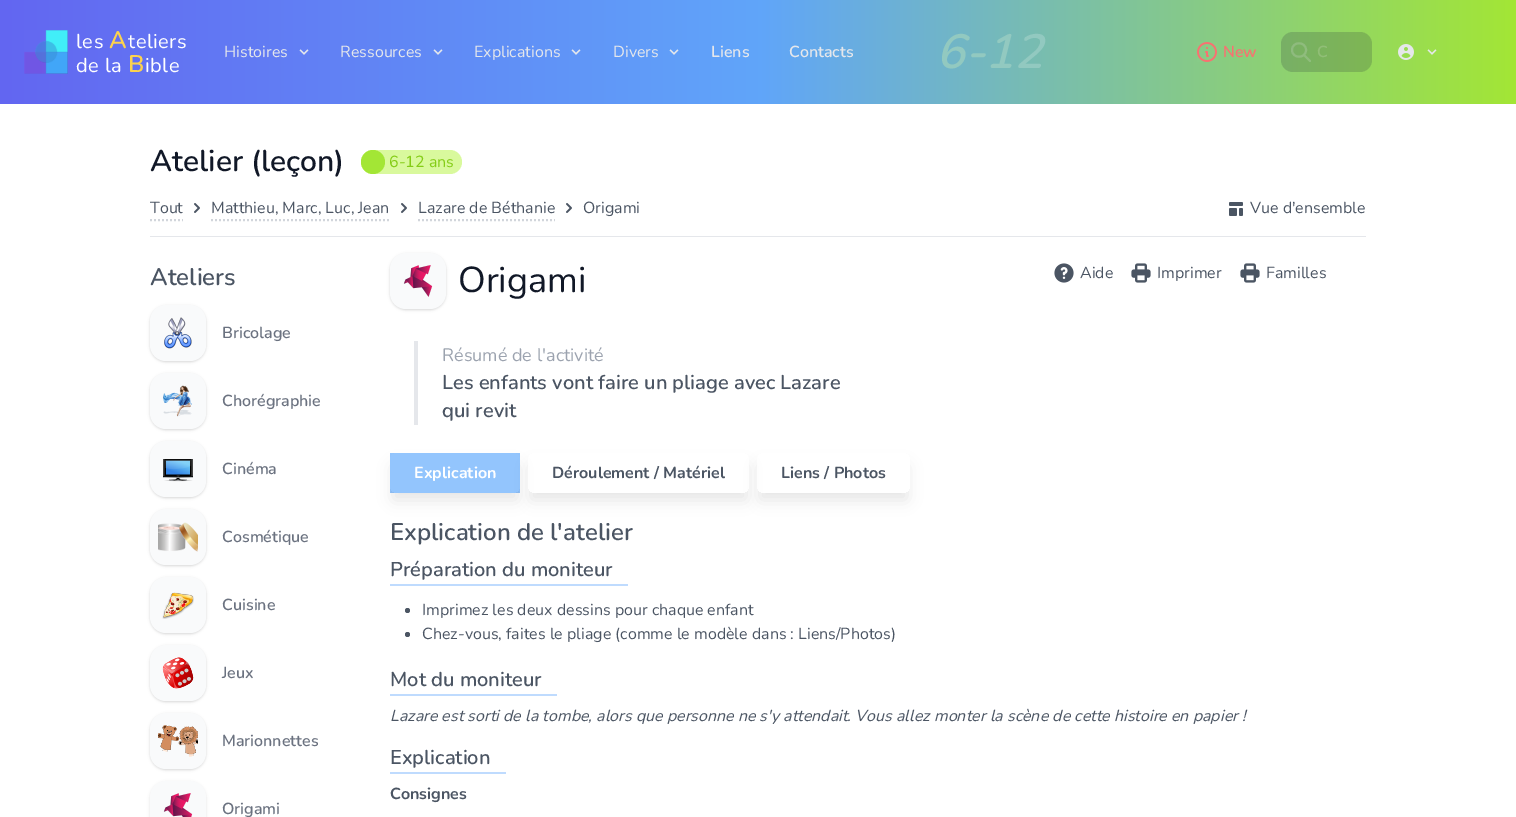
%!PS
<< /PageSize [1516 817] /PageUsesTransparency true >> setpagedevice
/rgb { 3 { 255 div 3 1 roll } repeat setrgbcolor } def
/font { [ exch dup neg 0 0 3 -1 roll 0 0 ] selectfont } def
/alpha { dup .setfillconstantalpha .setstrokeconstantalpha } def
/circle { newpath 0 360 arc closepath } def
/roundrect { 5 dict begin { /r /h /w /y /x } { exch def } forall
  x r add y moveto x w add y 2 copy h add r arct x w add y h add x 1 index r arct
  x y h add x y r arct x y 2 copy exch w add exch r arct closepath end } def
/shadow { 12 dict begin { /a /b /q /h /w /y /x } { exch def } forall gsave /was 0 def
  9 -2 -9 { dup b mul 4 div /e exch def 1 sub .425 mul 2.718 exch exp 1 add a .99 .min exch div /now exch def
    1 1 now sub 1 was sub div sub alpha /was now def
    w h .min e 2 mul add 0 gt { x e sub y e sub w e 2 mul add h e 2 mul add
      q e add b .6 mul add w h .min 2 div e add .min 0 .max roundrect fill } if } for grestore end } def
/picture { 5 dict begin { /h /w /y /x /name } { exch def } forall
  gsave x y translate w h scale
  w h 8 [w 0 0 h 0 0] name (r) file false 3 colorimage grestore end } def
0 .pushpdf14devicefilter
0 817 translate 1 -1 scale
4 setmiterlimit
255 255 255 rgb
0 0 1516 817 rectfill
gsave 0 0 moveto 1516 0 lineto 1516 104 lineto 0 104 lineto closepath clip newpath
<< /ShadingType 2 /ColorSpace /DeviceRGB /Coords [0 52 1516 52] /Extend [true true] /Function << /FunctionType 3 /Domain [0 1] /Functions [<< /FunctionType 2 /Domain [0 1] /C0 [0.388 0.4 0.945] /C1 [0.376 0.647 0.98] /N 1 >> << /FunctionType 2 /Domain [0 1] /C0 [0.376 0.647 0.98] /C1 [0.639 0.902 0.208] /N 1 >>] /Bounds [0.5] /Encode [0 1 0 1] >> >> shfill grestore
(img/1.rgb) 24 30 44 44 picture
(img/2.rgb) 299 49 10 6 picture
(img/3.rgb) 433 49 10 6 picture
(img/4.rgb) 571 49 10 6 picture
(img/5.rgb) 669 49 10 6 picture
(img/6.rgb) 1197 42 20 20 picture
0.2 alpha
31 41 55 rgb
1281 32 91 40 12 roundrect fill
229 231 235 rgb
2 setlinewidth
1 setlinecap
1 setlinejoin
1310 61 moveto 1304 55 lineto 1306 50 moveto 1306 59 1292 59 1292 50 curveto 1292 41 1306 41 1306 50 curveto closepath stroke
1 alpha
(img/7.rgb) 1398 44 16 16 picture
(img/8.rgb) 1427 49 10 6 picture
217 249 157 rgb
361 150 101 24 12 roundrect fill
163 230 53 rgb
373 162 12 circle fill
209 213 219 rgb
0 setlinecap
0 setlinejoin
[2 2] 0 setdash
150 220 moveto 183 220 lineto stroke
(img/9.rgb) 194 203 6 10 picture
211 220 moveto 390 220 lineto stroke
(img/9.rgb) 401 203 6 10 picture
418 220 moveto 555 220 lineto stroke
(img/9.rgb) 566 203 6 10 picture
(img/10.rgb) 1229 202 14 14 picture
229 231 235 rgb
150 236 1216 1 rectfill
0 0 0 rgb
150 306 56 56 16 1 0.06 shadow
150 306 56 56 16 1.5 0.1 shadow
249 250 251 rgb
150 305 56 56 16 roundrect fill
(img/11.rgb) 164 317 28 32 picture
0 0 0 rgb
150 374 56 56 16 1 0.06 shadow
150 374 56 56 16 1.5 0.1 shadow
249 250 251 rgb
150 373 56 56 16 roundrect fill
(img/12.rgb) 163 385 29 32 picture
0 0 0 rgb
150 442 56 56 16 1 0.06 shadow
150 442 56 56 16 1.5 0.1 shadow
249 250 251 rgb
150 441 56 56 16 roundrect fill
(img/13.rgb) 163 459 30 23 picture
0 0 0 rgb
150 510 56 56 16 1 0.06 shadow
150 510 56 56 16 1.5 0.1 shadow
249 250 251 rgb
150 509 56 56 16 roundrect fill
(img/14.rgb) 158 522 40 30 picture
0 0 0 rgb
150 578 56 56 16 1 0.06 shadow
150 578 56 56 16 1.5 0.1 shadow
249 250 251 rgb
150 577 56 56 16 roundrect fill
(img/15.rgb) 162 592 32 27 picture
0 0 0 rgb
150 646 56 56 16 1 0.06 shadow
150 646 56 56 16 1.5 0.1 shadow
249 250 251 rgb
150 645 56 56 16 roundrect fill
(img/16.rgb) 162 657 32 32 picture
0 0 0 rgb
150 714 56 56 16 1 0.06 shadow
150 714 56 56 16 1.5 0.1 shadow
249 250 251 rgb
150 713 56 56 16 roundrect fill
(img/17.rgb) 158 725 40 32 picture
0 0 0 rgb
150 782 56 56 16 1.5 0.1 shadow
249 250 251 rgb
150 781 56 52 16 roundrect fill
(img/18.rgb) 163 793 30 24 picture
0 0 0 rgb
390 254 56 56 16 1 0.06 shadow
390 254 56 56 16 1.5 0.1 shadow
249 250 251 rgb
390 253 56 56 16 roundrect fill
(img/19.rgb) 403 265 30 32 picture
(img/20.rgb) 1054 263 20 20 picture
(img/21.rgb) 1131 263 20 20 picture
(img/21.rgb) 1240 263 20 20 picture
229 231 235 rgb
414 341 4 84 rectfill
147 197 253 rgb
390 453 130 40 rectfill
gsave
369 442 moveto 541 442 lineto 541 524 lineto 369 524 lineto closepath 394 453 moveto 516 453 lineto 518 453 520 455 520 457 curveto 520 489 lineto 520 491 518 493 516 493 curveto 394 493 lineto 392 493 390 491 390 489 curveto 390 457 lineto 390 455 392 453 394 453 curveto closepath eoclip newpath
0 0 0 rgb
393 466 124 34 1 7.5 0.1 shadow
grestore
gsave
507 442 moveto 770 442 lineto 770 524 lineto 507 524 lineto closepath 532 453 moveto 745 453 lineto 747 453 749 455 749 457 curveto 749 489 lineto 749 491 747 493 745 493 curveto 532 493 lineto 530 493 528 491 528 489 curveto 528 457 lineto 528 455 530 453 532 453 curveto closepath eoclip newpath
0 0 0 rgb
531 466 215 34 1 7.5 0.1 shadow
grestore
gsave
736 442 moveto 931 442 lineto 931 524 lineto 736 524 lineto closepath 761 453 moveto 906 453 lineto 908 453 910 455 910 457 curveto 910 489 lineto 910 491 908 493 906 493 curveto 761 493 lineto 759 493 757 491 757 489 curveto 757 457 lineto 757 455 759 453 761 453 curveto closepath eoclip newpath
0 0 0 rgb
760 466 147 34 1 7.5 0.1 shadow
grestore
191 219 254 rgb
390 584 238 2 rectfill
75 85 99 rgb
407.5 610.5 2.5 circle fill
407.5 634.5 2.5 circle fill
191 219 254 rgb
390 694 167 2 rectfill
390 772 116 2 rectfill
/Nunito-Regular 20 font
255 255 255 rgb
76 48 moveto 0.5 0 (les) ashow
/Nunito-SemiBold 24 font
252 211 77 rgb
109 48 moveto 0.5 0 (A) ashow
/Nunito-Regular 20 font
255 255 255 rgb
128 48 moveto 0.5 0 (teliers) ashow
76 72 moveto 0.5 0 (de la) ashow
/Nunito-SemiBold 24 font
252 211 77 rgb
128 72 moveto 0.5 0 (B) ashow
/Nunito-Regular 20 font
255 255 255 rgb
145 72 moveto 0.5 0 (ible) ashow
/Nunito-Regular 16 font
229 231 235 rgb
[
  [(Histoires) 224 57]
  [(Ressources) 340 57]
  [(Explications) 474 57]
  [(Divers) 613 57]
] { aload pop moveto show } forall
/Nunito-SemiBold 16 font
711 57 moveto (Liens) show
789 57 moveto (Contacts) show
/Nunito-SemiBoldItalic 48 font
146 201 192 rgb
936 68 moveto (6-12) show
/Nunito-SemiBold 16 font
248 113 113 rgb
1223 57 moveto (New) show
145 190 119 rgb
1317 57 moveto (C) show
/Nunito-SemiBold 30 font
17 24 39 rgb
150 171 moveto (Atelier \(leçon\)) show
/Nunito-Regular 16 font
132 204 22 rgb
389 167 moveto (6-12 ans) show
75 85 99 rgb
[
  [(Tout) 150 213]
  [(Matthieu, Marc, Luc, Jean) 211 213]
  [(Lazare de Béthanie) 418 213]
  [(Origami) 583 213]
  [(Vue d'ensemble) 1250 213]
] { aload pop moveto show } forall
/Nunito-SemiBold 24 font
150 285 moveto (Ateliers) show
/Nunito-SemiBold 16 font
107 114 128 rgb
[
  [(Bricolage) 222 338]
  [(Chorégraphie) 222 406]
  [(Cinéma) 222 474]
  [(Cosmétique) 222 542]
  [(Cuisine) 222 610]
  [(Jeux) 222 678]
  [(Marionnettes) 222 746]
  [(Origami) 222 814]
] { aload pop moveto show } forall
/Nunito-Regular 36 font
17 24 39 rgb
458 292 moveto (Origami) show
/Nunito-Regular 16 font
75 85 99 rgb
[
  [(Aide) 1080 278]
  [(Imprimer) 1157 278]
  [(Familles) 1266 278]
] { aload pop moveto show } forall
/Nunito-Regular 18 font
156 163 175 rgb
442 361 moveto (Résumé de l'activité) show
/Nunito-SemiBold 20 font
75 85 99 rgb
442 389 moveto (Les enfants vont faire un pliage avec Lazare) show
442 417 moveto (qui revit) show
/Nunito-Bold 16 font
255 255 255 rgb
414 478 moveto (Explication) show
75 85 99 rgb
552 478 moveto (Déroulement / Matériel) show
781 478 moveto (Liens / Photos) show
/Nunito-SemiBold 24 font
390 540 moveto (Explication de l'atelier) show
/Nunito-SemiBold 20 font
390 576 moveto (Préparation du moniteur) show
/Nunito-Regular 16 font
422 615 moveto (Imprimez les deux dessins pour chaque enfant) show
422 639 moveto (Chez-vous, faites le pliage \(comme le modèle dans : Liens/Photos\)) show
/Nunito-SemiBold 20 font
390 686 moveto (Mot du moniteur) show
/Nunito-Italic 16 font
390 721 moveto (Lazare est sorti de la tombe, alors que personne ne s'y attendait. Vous allez monter la scène de cette histoire en papier !) show
/Nunito-SemiBold 20 font
390 764 moveto (Explication) show
/Nunito-Bold 16 font
390 799 moveto (Consignes) show
.poppdf14devicefilter showpage
